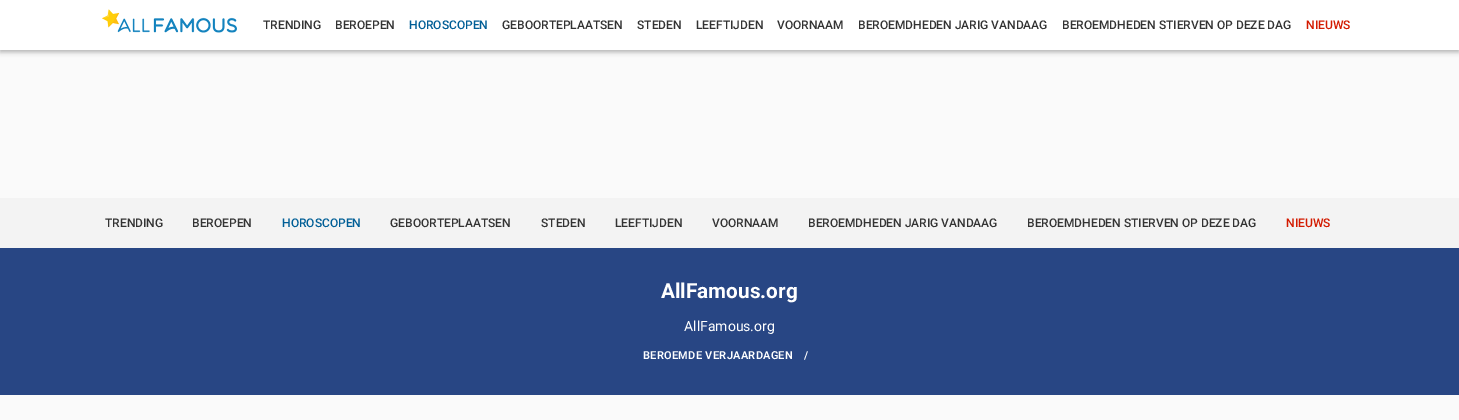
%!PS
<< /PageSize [1459 420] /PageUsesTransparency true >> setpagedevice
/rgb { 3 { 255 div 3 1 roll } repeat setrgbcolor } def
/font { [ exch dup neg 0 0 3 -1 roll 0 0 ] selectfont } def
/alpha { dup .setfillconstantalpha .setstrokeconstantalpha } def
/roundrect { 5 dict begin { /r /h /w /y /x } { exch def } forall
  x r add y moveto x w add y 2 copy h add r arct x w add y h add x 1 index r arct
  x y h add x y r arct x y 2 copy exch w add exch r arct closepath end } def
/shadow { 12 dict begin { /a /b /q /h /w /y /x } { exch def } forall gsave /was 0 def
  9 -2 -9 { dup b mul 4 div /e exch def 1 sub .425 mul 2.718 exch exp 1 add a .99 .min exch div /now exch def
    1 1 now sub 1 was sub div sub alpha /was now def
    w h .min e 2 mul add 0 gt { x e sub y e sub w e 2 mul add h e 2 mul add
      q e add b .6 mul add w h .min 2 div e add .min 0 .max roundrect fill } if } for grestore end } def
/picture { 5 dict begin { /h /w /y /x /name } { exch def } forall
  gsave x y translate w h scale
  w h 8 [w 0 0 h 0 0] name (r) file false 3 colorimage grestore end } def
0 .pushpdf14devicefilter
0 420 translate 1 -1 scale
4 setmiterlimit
250 250 250 rgb
0 0 1459 420 rectfill
0 0 0 rgb
0 2 1459 50 0 2.5 0.3 shadow
255 255 255 rgb
0 0 1459 50 rectfill
(img/1.rgb) 102 9 135 24 picture
243 243 243 rgb
0 198 1459 50 rectfill
40 70 132 rgb
0 248 1459 147 rectfill
/Roboto-Medium 12 font
51 51 51 rgb
263 29 moveto (TRENDING) show
335 29 moveto (BEROEPEN) show
0 94 150 rgb
409 29 moveto (HOROSCOPEN) show
51 51 51 rgb
[
  [(GEBOORTEPLAATSEN) 502 29]
  [(STEDEN) 637 29]
  [(LEEFTIJDEN) 696 29]
  [(VOORNAAM) 777 29]
  [(BEROEMDHEDEN JARIG VANDAAG) 858 29]
  [(BEROEMDHEDEN STIERVEN OP DEZE DAG) 1062 29]
] { aload pop moveto show } forall
211 26 0 rgb
1306 29 moveto (NIEUWS) show
51 51 51 rgb
105 227 moveto (TRENDING) show
192 227 moveto (BEROEPEN) show
0 94 150 rgb
282 227 moveto (HOROSCOPEN) show
51 51 51 rgb
[
  [(GEBOORTEPLAATSEN) 390 227]
  [(STEDEN) 541 227]
  [(LEEFTIJDEN) 615 227]
  [(VOORNAAM) 712 227]
  [(BEROEMDHEDEN JARIG VANDAAG) 808 227]
  [(BEROEMDHEDEN STIERVEN OP DEZE DAG) 1027 227]
] { aload pop moveto show } forall
211 26 0 rgb
1286 227 moveto (NIEUWS) show
/Roboto-Bold 20.75 font
255 255 255 rgb
661 298 moveto (AllFamous.org) show
/Roboto-Regular 14 font
684 331 moveto (AllFamous.org) show
/Roboto-SemiBold 11 font
643 359 moveto 0.3 0 (BEROEMDE VERJAARDAGEN) ashow
804 359 moveto 0.3 0 (/) ashow
.poppdf14devicefilter showpage
